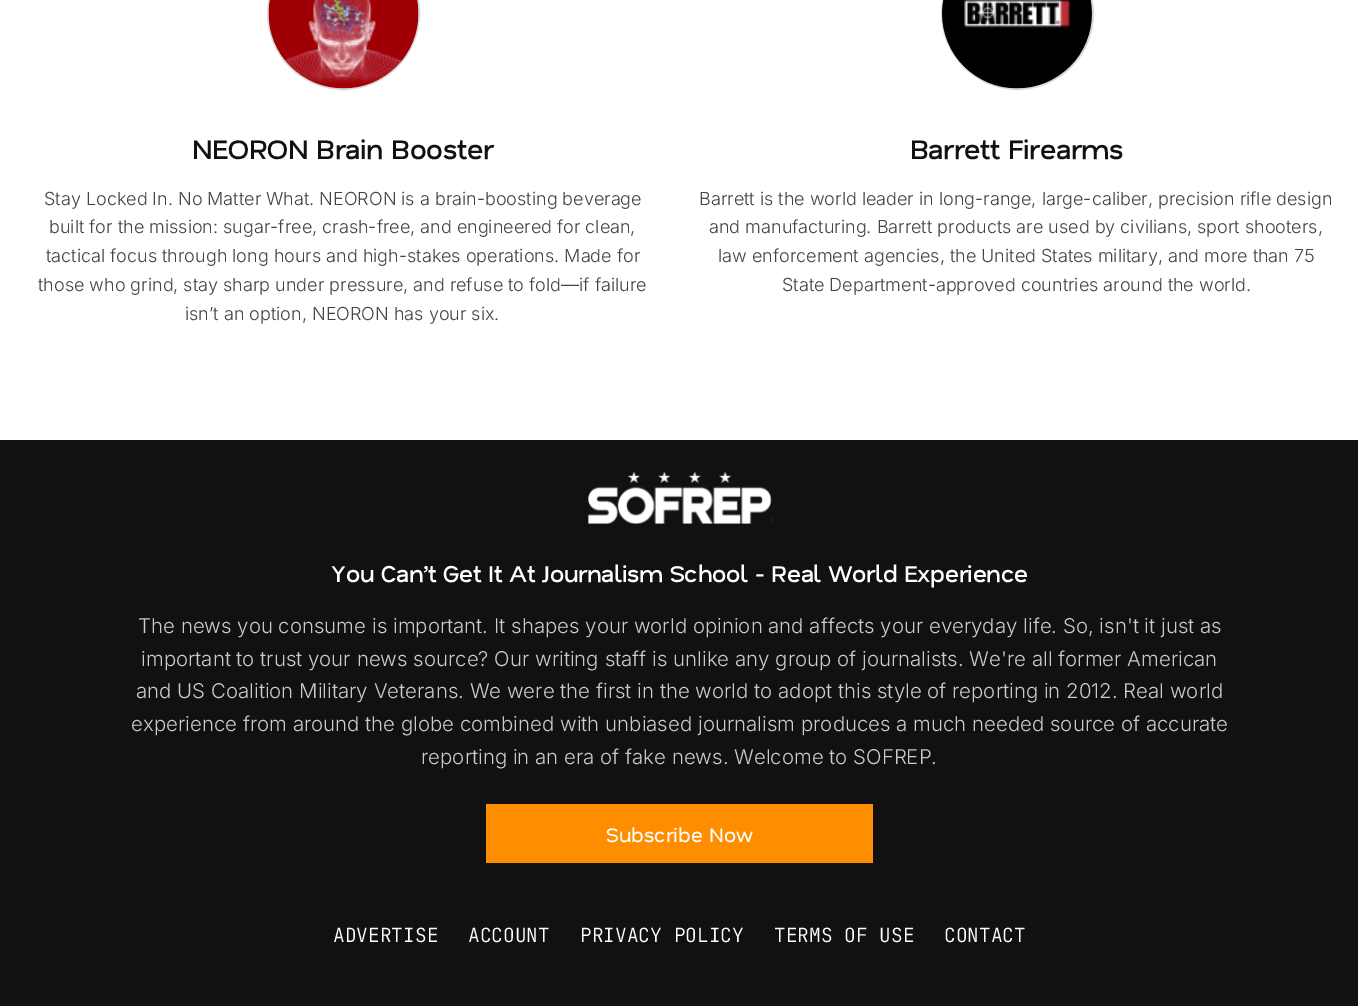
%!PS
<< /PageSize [1358 1006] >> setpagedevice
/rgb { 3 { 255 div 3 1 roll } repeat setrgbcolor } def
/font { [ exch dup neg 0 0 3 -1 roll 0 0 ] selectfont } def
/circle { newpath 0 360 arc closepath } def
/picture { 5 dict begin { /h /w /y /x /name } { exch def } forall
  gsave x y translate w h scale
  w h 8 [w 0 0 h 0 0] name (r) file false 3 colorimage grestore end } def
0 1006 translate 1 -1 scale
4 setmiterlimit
255 255 255 rgb
0 0 1358 1006 rectfill
217 217 217 rgb
2 setlinewidth
343.5 13.5 75.5 circle stroke
(img/1.rgb) 268 0 151 89 picture
1017.5 13.5 75.5 circle stroke
(img/2.rgb) 942 0 150 89 picture
17 17 17 rgb
0 440 1358 566 rectfill
(img/3.rgb) 588 471 184 53 picture
255 141 0 rgb
486 804 387 59 rectfill
/NataSans-SemiBold 28 font
17 17 17 rgb
192 159 moveto -0.25 0 (NEORON Brain Booster) ashow
/Inter-Light 18 font
68 68 68 rgb
[
  [(Stay Locked In. No Matter What. NEORON is a brain-boosting beverage) 44 205]
  [(built for the mission: sugar-free, crash-free, and engineered for clean,) 49 233]
  [(tactical focus through long hours and high-stakes operations. Made for) 46 262]
  [(those who grind, stay sharp under pressure, and refuse to fold—if failure) 38 291]
  [(isn’t an option, NEORON has your six.) 185 320]
] { aload pop moveto show } forall
/NataSans-SemiBold 28 font
17 17 17 rgb
910 159 moveto -0.25 0 (Barrett Firearms) ashow
/Inter-Light 18 font
68 68 68 rgb
[
  [(Barrett is the world leader in long-range, large-caliber, precision rifle design) 699 205]
  [(and manufacturing. Barrett products are used by civilians, sport shooters,) 709 233]
  [(law enforcement agencies, the United States military, and more than 75) 718 262]
  [(State Department-approved countries around the world.) 782 291]
] { aload pop moveto show } forall
/NataSans-SemiBold 23.9 font
255 255 255 rgb
331 582 moveto -0.25 0 (You Can’t Get It At Journalism School - Real World Experience) ashow
/Inter-Light 20.4 font
204 204 204 rgb
[
  [(The news you consume is important. It shapes your world opinion and affects your everyday life. So, isn't it just as) 138 633]
  [(important to trust your news source? Our writing staff is unlike any group of journalists. We're all former American) 141 666]
  [(and US Coalition Military Veterans. We were the first in the world to adopt this style of reporting in 2012. Real world) 136 698]
  [(experience from around the globe combined with unbiased journalism produces a much needed source of accurate) 131 731]
  [(reporting in an era of fake news. Welcome to SOFREP.) 421 764]
] { aload pop moveto show } forall
/NataSans-Medium 20.4 font
255 255 255 rgb
606 842 moveto (Subscribe Now) show
/JetBrainsMono-Light 19.5 font
[
  [(ADVERTISE) 333 942]
  [(ACCOUNT) 468 942]
  [(PRIVACY POLICY) 580 942]
  [(TERMS OF USE) 774 942]
  [(CONTACT) 944 942]
] { aload pop moveto show } forall
showpage
